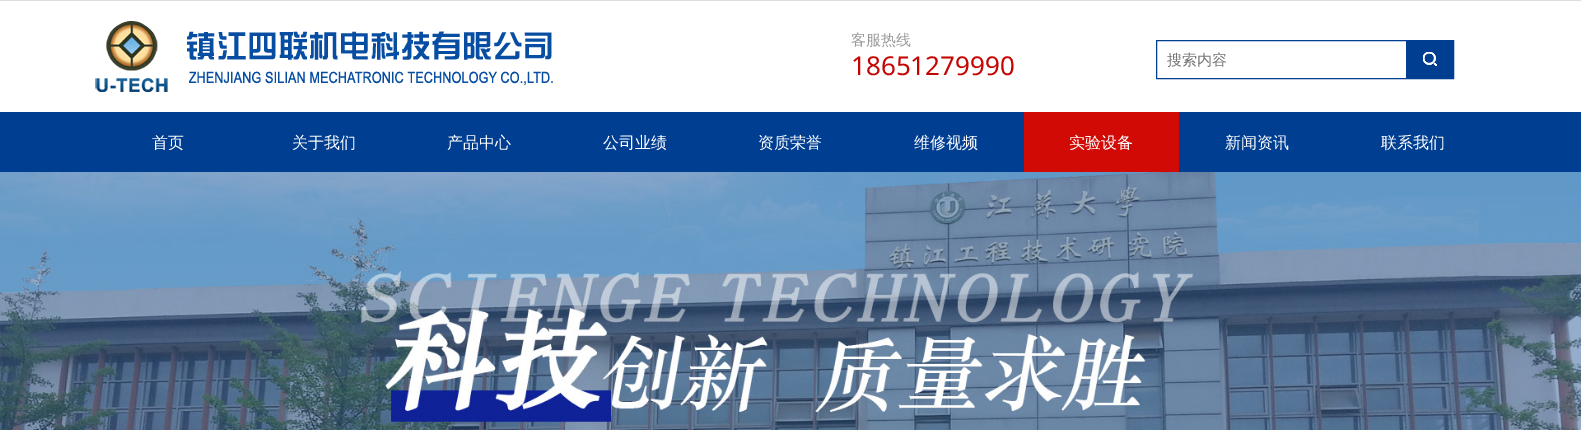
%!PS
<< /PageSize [1581 430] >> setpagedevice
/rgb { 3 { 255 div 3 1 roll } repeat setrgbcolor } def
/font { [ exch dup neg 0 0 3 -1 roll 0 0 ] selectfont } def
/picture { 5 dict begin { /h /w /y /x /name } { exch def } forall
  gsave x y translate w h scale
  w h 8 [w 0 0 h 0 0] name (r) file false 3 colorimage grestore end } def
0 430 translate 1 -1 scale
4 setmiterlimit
255 255 255 rgb
0 0 1581 430 rectfill
221 221 221 rgb
0 0 1581 1 rectfill
(img/1.rgb) 95 21 458 71 picture
0 62 146 rgb
1156.5 40.5 297 38 rectstroke
1406 41 47 37 rectfill
(img/2.rgb) 1423 52 14 14 picture
0 112 1581 60 rectfill
210 10 5 rgb
1024 112 155 60 rectfill
(img/3.rgb) 0 172 1581 258 picture
/WenQuanYiZenHei-Medium 15 font
153 153 153 rgb
851 45 moveto (客服热线) show
/NotoSans-Regular 26 font
197 5 1 rgb
851 75 moveto (18651279990) show
gsave
1167 49 236 21 rectclip
/WenQuanYiZenHei-Medium 15 font
117 117 117 rgb
1167 65 moveto (搜索内容) show
grestore
/WenQuanYiZenHei-Medium 16 font
255 255 255 rgb
[
  [(首页) 152 148]
  [(关于我们) 292 148]
  [(产品中心) 447 148]
  [(公司业绩) 603 148]
  [(资质荣誉) 758 148]
  [(维修视频) 914 148]
  [(实验设备) 1069 148]
  [(新闻资讯) 1225 148]
  [(联系我们) 1381 148]
] { aload pop moveto show } forall
showpage
